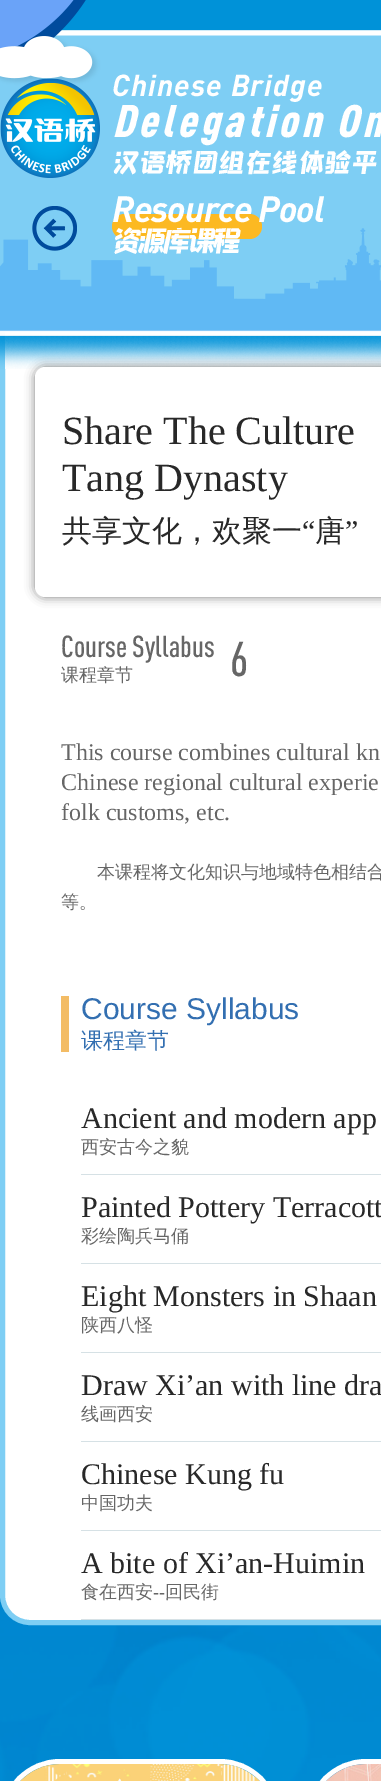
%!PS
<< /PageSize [381 1781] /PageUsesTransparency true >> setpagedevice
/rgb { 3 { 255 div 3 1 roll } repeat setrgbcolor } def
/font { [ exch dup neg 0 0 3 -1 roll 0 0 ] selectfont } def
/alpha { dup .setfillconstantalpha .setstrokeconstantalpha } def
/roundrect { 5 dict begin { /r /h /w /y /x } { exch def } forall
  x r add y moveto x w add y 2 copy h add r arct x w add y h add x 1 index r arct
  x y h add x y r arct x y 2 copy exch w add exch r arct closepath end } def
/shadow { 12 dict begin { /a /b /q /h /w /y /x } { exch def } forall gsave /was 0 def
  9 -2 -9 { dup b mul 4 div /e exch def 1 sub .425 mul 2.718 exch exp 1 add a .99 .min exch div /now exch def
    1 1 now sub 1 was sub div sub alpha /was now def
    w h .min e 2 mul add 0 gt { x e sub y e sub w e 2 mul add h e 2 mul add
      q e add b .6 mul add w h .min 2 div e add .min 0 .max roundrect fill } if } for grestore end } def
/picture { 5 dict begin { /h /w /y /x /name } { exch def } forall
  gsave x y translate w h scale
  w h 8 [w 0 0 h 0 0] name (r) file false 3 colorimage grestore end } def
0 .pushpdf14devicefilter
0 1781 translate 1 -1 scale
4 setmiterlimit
255 255 255 rgb
0 0 381 1781 rectfill
(img/1.rgb) 0 1595 381 186 picture
2.5 256.5 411 1366 27.5 roundrect gsave fill grestore
126 206 244 rgb
5 setlinewidth
stroke
(img/2.rgb) 0 0 381 369 picture
(img/3.rgb) 32 206 45 45 picture
252 185 34 rgb
112 214 150 25 12.5 roundrect fill
0 0 0 rgb
35 367 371 230 10 5 0.5 shadow
255 255 255 rgb
35 367 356 230 10 roundrect fill
[
  [61 996 8 56 243 188 101]
  [81 1174 300 1 214 225 229]
  [81 1263 300 1 214 225 229]
  [81 1352 300 1 214 225 229]
  [81 1441 300 1 214 225 229]
  [81 1530 300 1 214 225 229]
  [81 1619 300 1 214 225 229]
] { aload pop rgb rectfill } forall
255 255 255 rgb
2.5 1761.5 275 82 57.5 roundrect stroke
(img/4.rgb) 20 1764 240 17 picture
308.5 1761.5 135 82 57.5 roundrect stroke
(img/5.rgb) 326 1764 55 17 picture
/DIN-BoldItalic 30 font
112 96 moveto 1 0 (Chinese Bridge) ashow
/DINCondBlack-BlackItalic 45 font
112 137 moveto 4 0 (Delegation On) ashow
/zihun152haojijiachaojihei-Regular 27.5 font
112 170 moveto -1 0 (汉语桥团组在线体验平) ashow
/DIN-BoldItalic 36 font
112 222 moveto -1 0 (Resource Pool) ashow
/zihun152haojijiachaojihei-Regular 30 font
112 249 moveto -5 0 (资源库课程) ashow
/LiberationSerif-Regular 40 font
40 40 40 rgb
62 444 moveto (Share The Culture) show
62 491 moveto (Tang Dynasty) show
/WenQuanYiZenHei-Medium 30 font
62 541 moveto (共享文化，欢聚一) show
/LiberationSerif-Regular 30 font
302 541 moveto (“) show
/WenQuanYiZenHei-Medium 30 font
315 541 moveto (唐) show
/LiberationSerif-Regular 30 font
345 541 moveto (”) show
/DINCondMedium-Medium 30 font
102 102 102 rgb
61 657 moveto (Course Syllabus) show
/WenQuanYiZenHei-Medium 18 font
61 681 moveto (课程章节) show
/DINCondMedium-Medium 48 font
230 676 moveto (6) show
/LiberationSerif-Regular 24 font
[
  [(This course combines cultural kn) 61 760]
  [(Chinese regional cultural experie) 61 790]
  [(folk customs, etc.) 61 820]
] { aload pop moveto show } forall
/WenQuanYiZenHei-Medium 18 font
97 878 moveto (本课程将文化知识与地域特色相结合) show
61 908 moveto (等。) show
/LiberationSans-Regular 30 font
51 111 177 rgb
81 1019 moveto (Course Syllabus) show
/WenQuanYiZenHei-Medium 22 font
81 1048 moveto (课程章节) show
/LiberationSerif-Regular 30 font
40 40 40 rgb
81 1128 moveto (Ancient and modern app) show
/WenQuanYiZenHei-Medium 18 font
102 102 102 rgb
81 1153 moveto (西安古今之貌) show
/LiberationSerif-Regular 30 font
40 40 40 rgb
81 1217 moveto (Painted Pottery Terracott) show
/WenQuanYiZenHei-Medium 18 font
102 102 102 rgb
81 1242 moveto (彩绘陶兵马俑) show
/LiberationSerif-Regular 30 font
40 40 40 rgb
81 1306 moveto (Eight Monsters in Shaan) show
/WenQuanYiZenHei-Medium 18 font
102 102 102 rgb
81 1331 moveto (陕西八怪) show
/LiberationSerif-Regular 30 font
40 40 40 rgb
81 1395 moveto (Draw Xi’an with line dra) show
/WenQuanYiZenHei-Medium 18 font
102 102 102 rgb
81 1420 moveto (线画西安) show
/LiberationSerif-Regular 30 font
40 40 40 rgb
81 1484 moveto (Chinese Kung fu) show
/WenQuanYiZenHei-Medium 18 font
102 102 102 rgb
81 1509 moveto (中国功夫) show
/LiberationSerif-Regular 30 font
40 40 40 rgb
81 1573 moveto (A bite of Xi’an-Huimin) show
/WenQuanYiZenHei-Medium 18 font
102 102 102 rgb
81 1598 moveto (食在西安) show
/LiberationSerif-Regular 18 font
153 1598 moveto (--) show
/WenQuanYiZenHei-Medium 18 font
165 1598 moveto (回民街) show
.poppdf14devicefilter showpage
